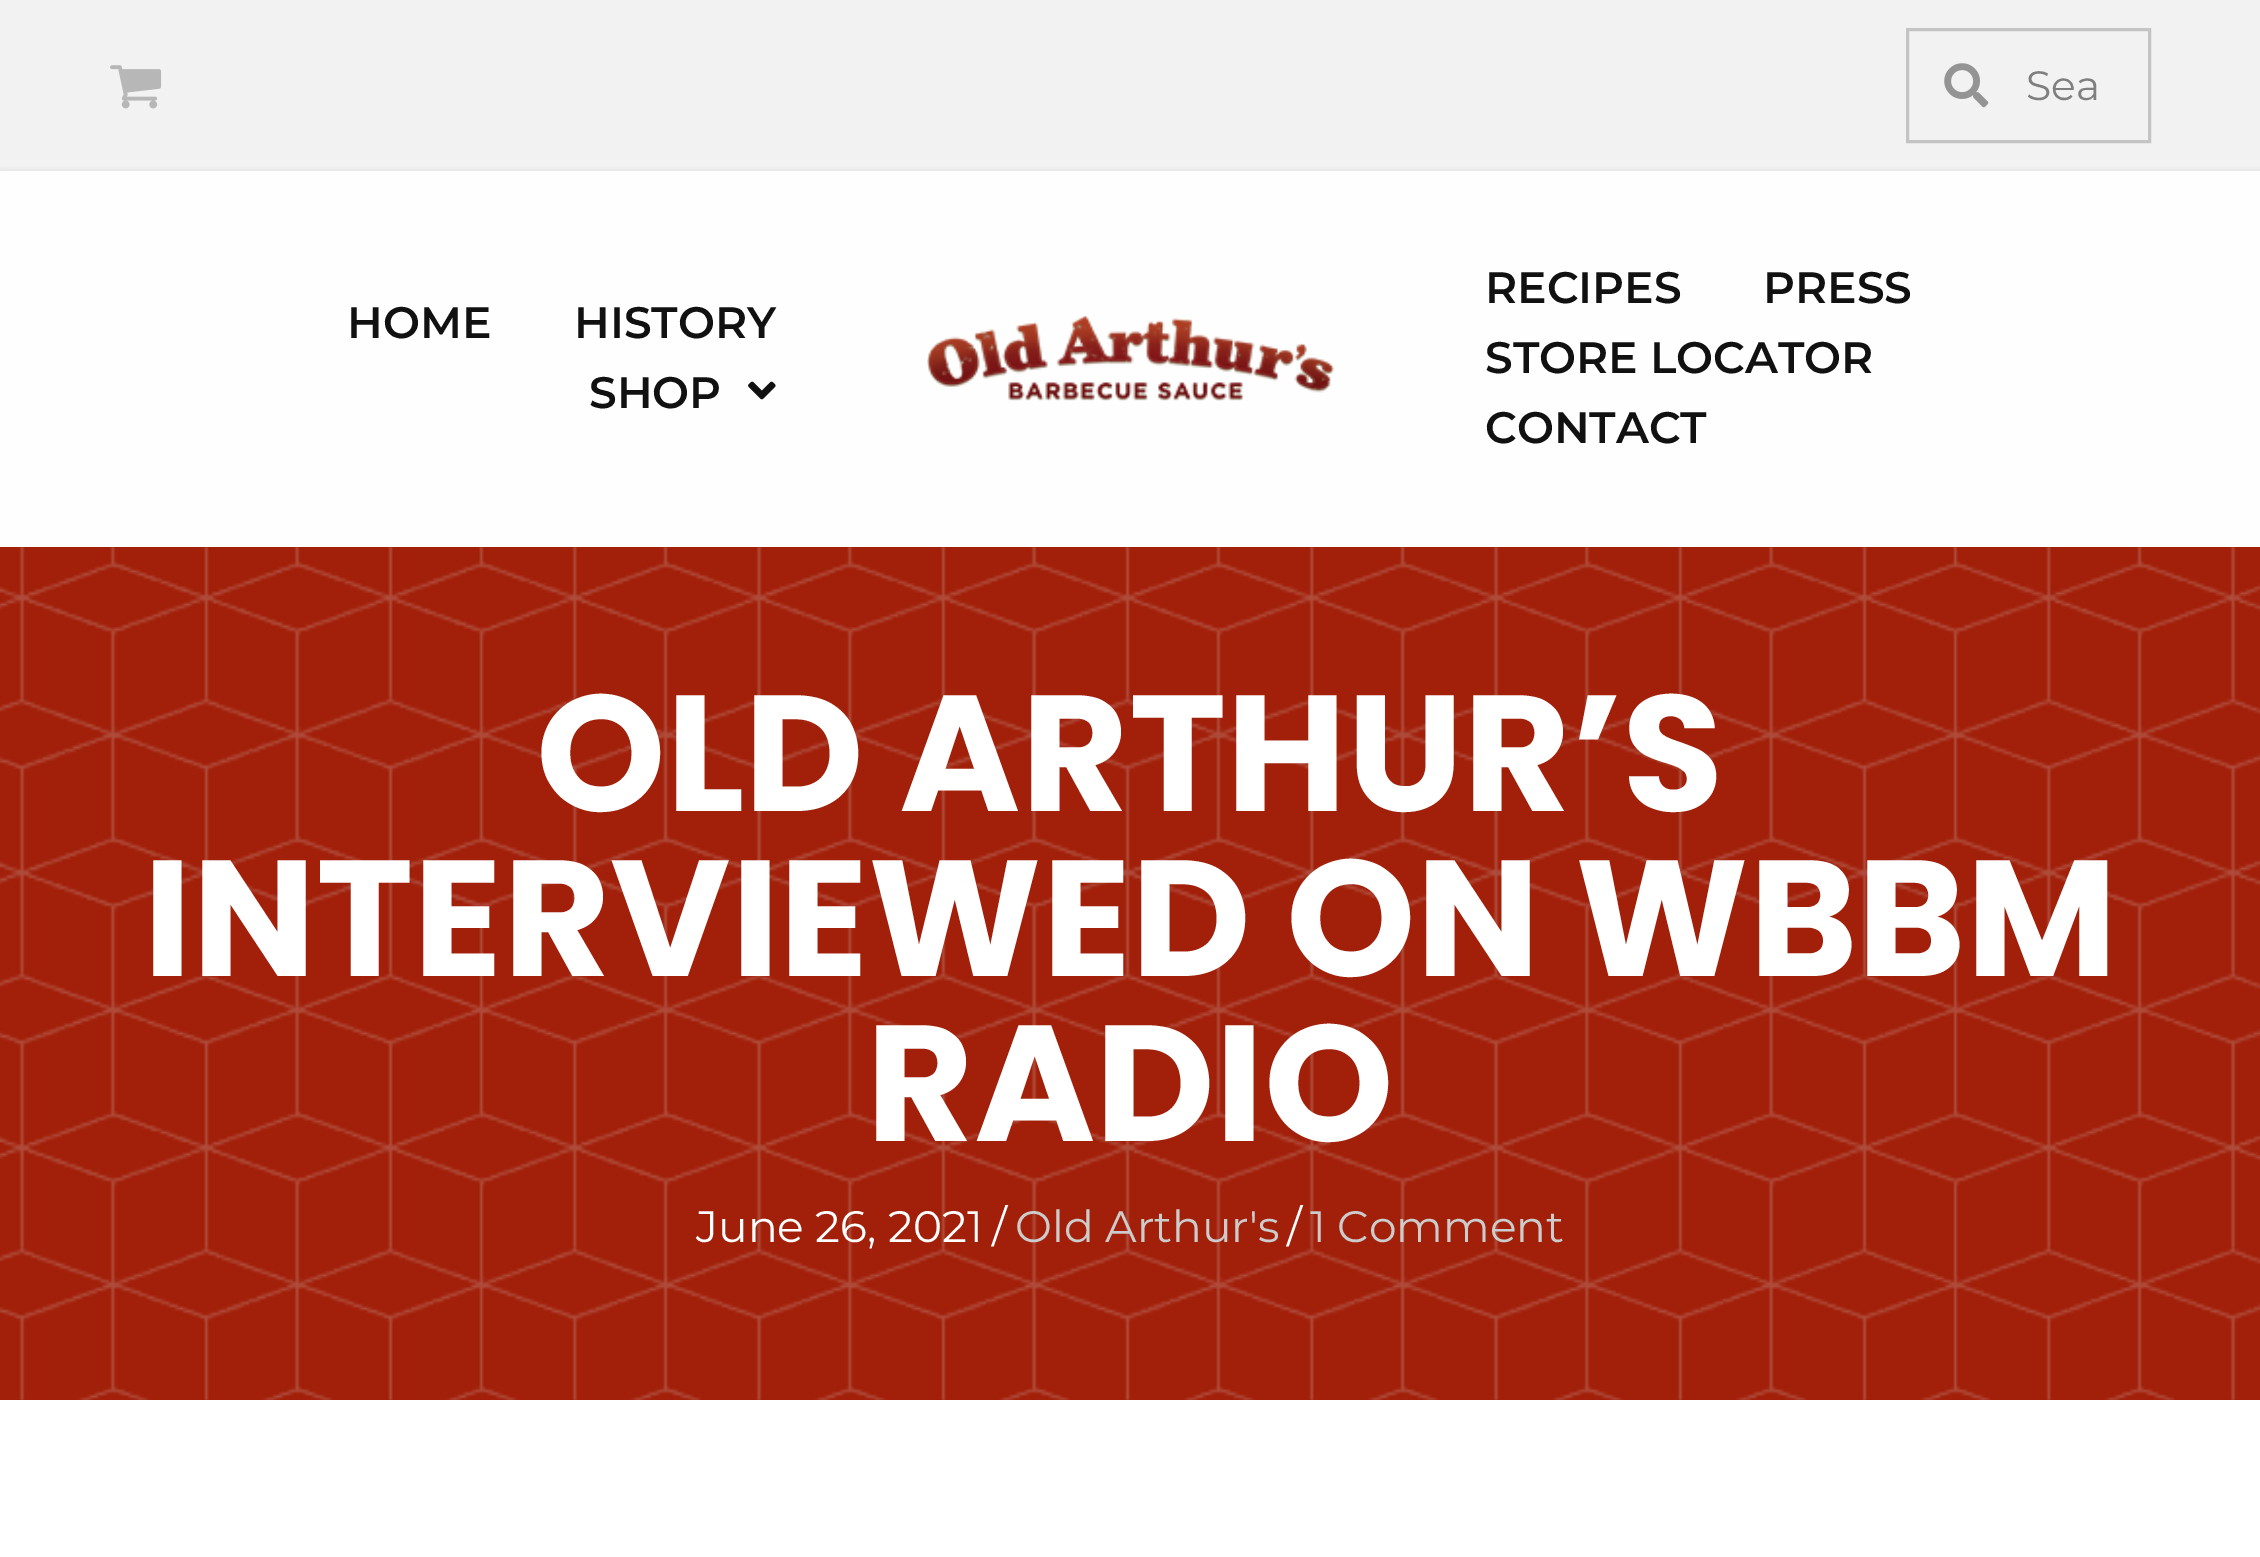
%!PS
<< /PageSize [2260 1557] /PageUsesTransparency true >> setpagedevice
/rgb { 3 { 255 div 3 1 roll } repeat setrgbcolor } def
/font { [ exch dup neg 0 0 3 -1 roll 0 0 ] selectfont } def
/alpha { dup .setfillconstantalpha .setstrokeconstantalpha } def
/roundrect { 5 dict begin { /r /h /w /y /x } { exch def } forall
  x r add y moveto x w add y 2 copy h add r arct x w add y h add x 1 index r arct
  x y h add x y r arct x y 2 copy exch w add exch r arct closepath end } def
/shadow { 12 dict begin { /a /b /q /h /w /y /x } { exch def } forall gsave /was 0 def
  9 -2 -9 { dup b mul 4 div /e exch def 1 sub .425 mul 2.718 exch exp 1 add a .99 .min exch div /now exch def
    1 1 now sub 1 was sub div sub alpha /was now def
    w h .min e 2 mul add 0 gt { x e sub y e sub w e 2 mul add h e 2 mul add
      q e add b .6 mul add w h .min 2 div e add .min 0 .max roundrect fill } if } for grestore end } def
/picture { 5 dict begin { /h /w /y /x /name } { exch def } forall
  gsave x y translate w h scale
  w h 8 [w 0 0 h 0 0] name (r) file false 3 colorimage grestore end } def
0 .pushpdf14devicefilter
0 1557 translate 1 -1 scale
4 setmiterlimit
242 242 242 rgb
0 0 2260 1557 rectfill
(img/1.rgb) 110 65 52 44 picture
196 196 196 rgb
3 setlinewidth
1907.5 29.5 242 112 rectstroke
(img/2.rgb) 1944 63 45 45 picture
119 119 119 rgb
0 176 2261 377 0 4 1 shadow
254 254 254 rgb
0 171 2260 376 rectfill
(img/3.rgb) 748 381 28 19 picture
(img/4.rgb) 927 316 407 85 picture
255 255 255 rgb
0 1400 2260 157 rectfill
162 32 10 rgb
0 547 2260 853 rectfill
(img/5.rgb) 0 547 2260 853 picture
/Montserrat-Regular 41 font
127 127 127 rgb
2026 100 moveto (Sea) show
/Montserrat-SemiBold 44 font
17 17 17 rgb
[
  [(HOME) 347 338]
  [(HISTORY) 574 338]
  [(SHOP) 589 408]
  [(RECIPES) 1485 303]
  [(PRESS) 1763 303]
  [(STORE LOCATOR) 1485 373]
  [(CONTACT) 1485 443]
] { aload pop moveto show } forall
/Poppins-Bold 165 font
255 255 255 rgb
[
  [(OLD ARTHUR’S) 536 811]
  [(INTERVIEWED ON WBBM) 143 976]
  [(RADIO) 866 1141]
] { aload pop moveto show } forall
/Montserrat-Regular 44 font
696 1242 moveto (June 26, 2021) show
992 1242 moveto (/) show
204 204 204 rgb
1015 1242 moveto (Old Arthur's) show
255 255 255 rgb
1287 1242 moveto (/) show
204 204 204 rgb
1310 1242 moveto (1 Comment) show
.poppdf14devicefilter showpage
